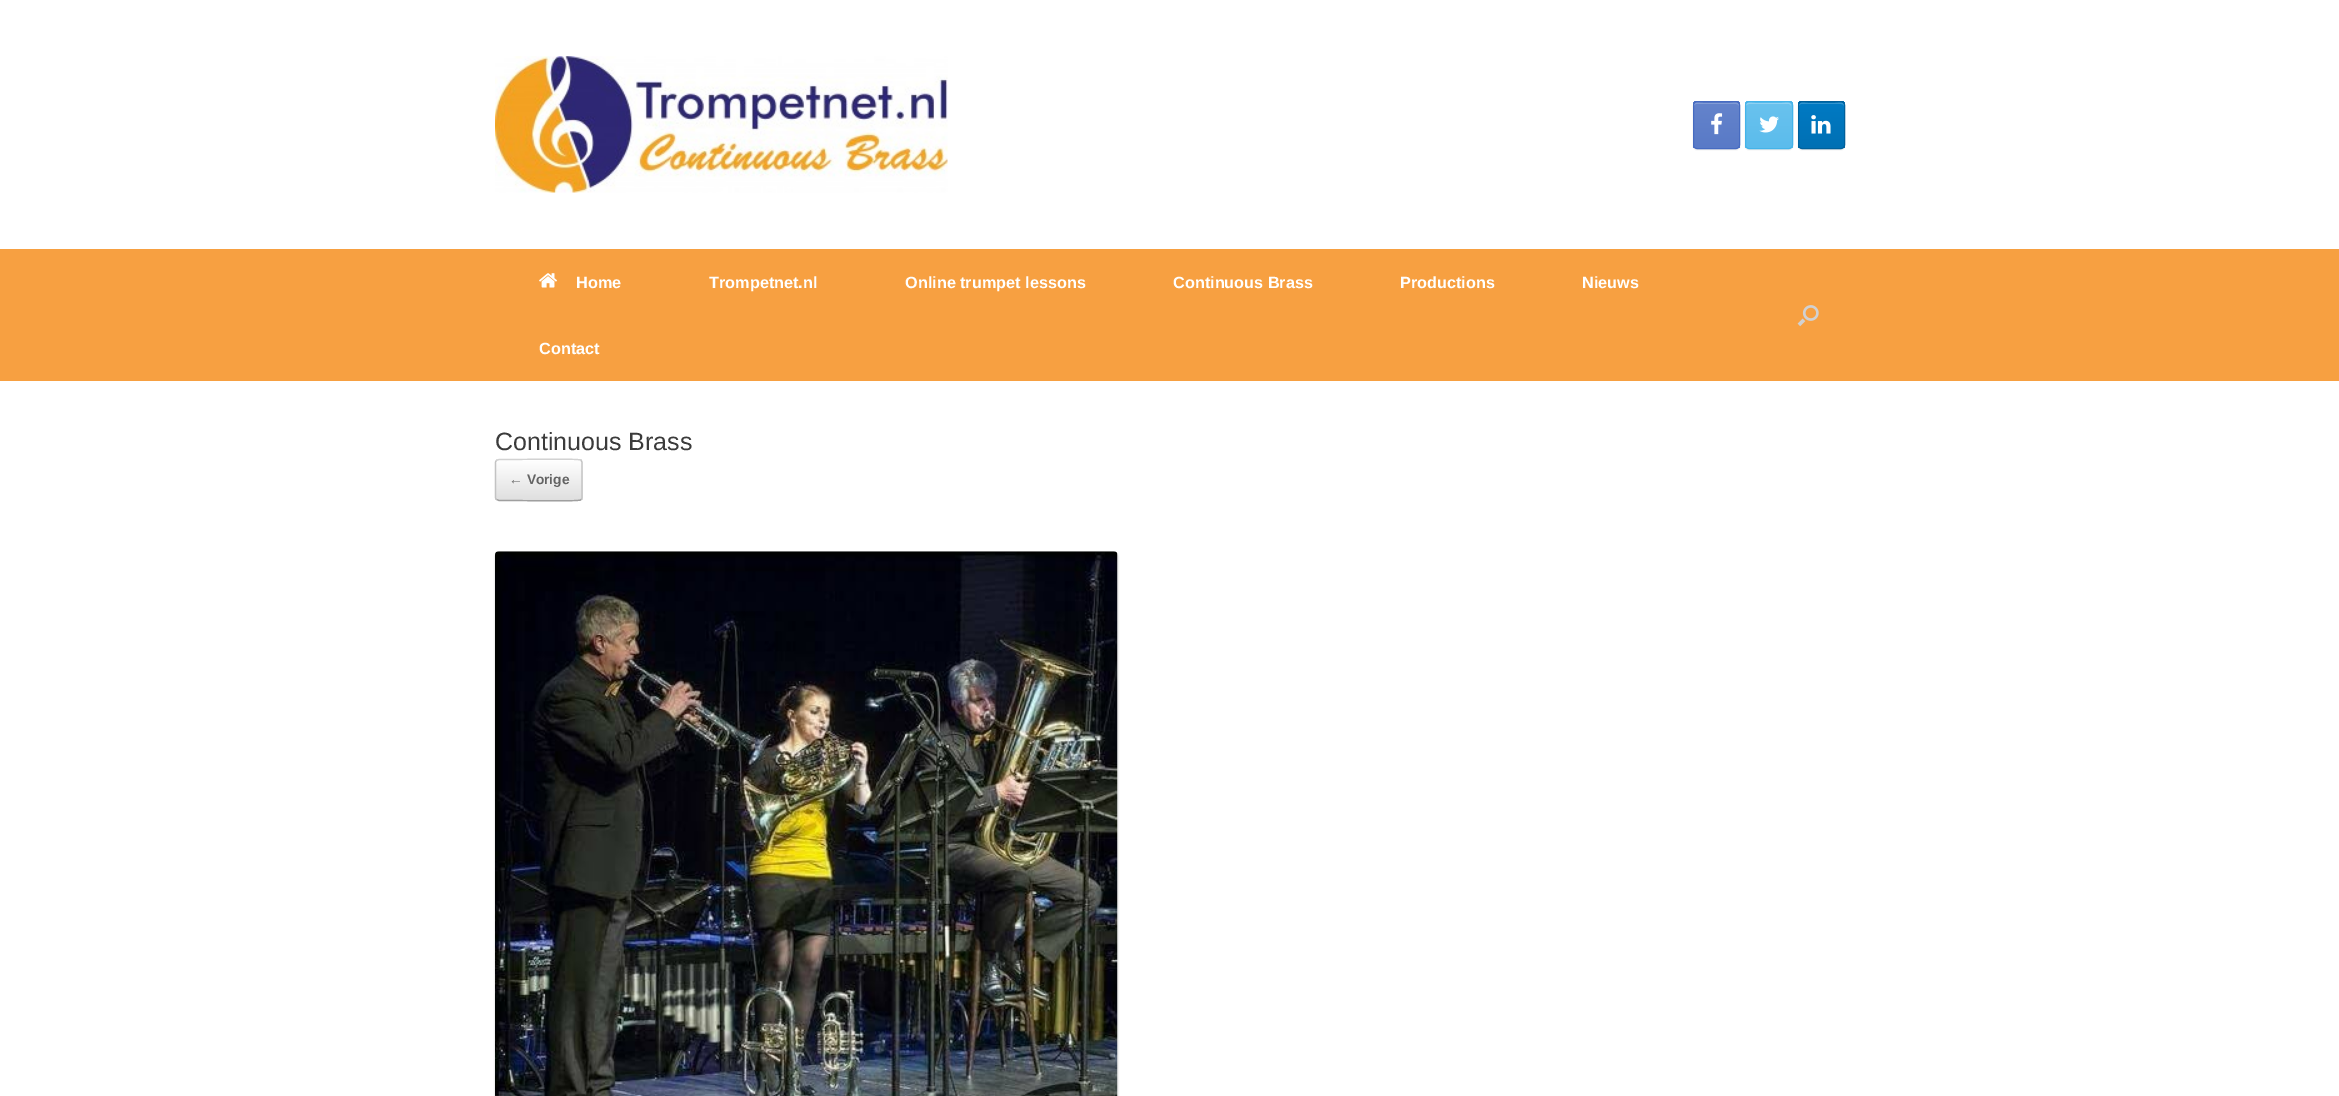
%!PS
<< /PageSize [2339 1096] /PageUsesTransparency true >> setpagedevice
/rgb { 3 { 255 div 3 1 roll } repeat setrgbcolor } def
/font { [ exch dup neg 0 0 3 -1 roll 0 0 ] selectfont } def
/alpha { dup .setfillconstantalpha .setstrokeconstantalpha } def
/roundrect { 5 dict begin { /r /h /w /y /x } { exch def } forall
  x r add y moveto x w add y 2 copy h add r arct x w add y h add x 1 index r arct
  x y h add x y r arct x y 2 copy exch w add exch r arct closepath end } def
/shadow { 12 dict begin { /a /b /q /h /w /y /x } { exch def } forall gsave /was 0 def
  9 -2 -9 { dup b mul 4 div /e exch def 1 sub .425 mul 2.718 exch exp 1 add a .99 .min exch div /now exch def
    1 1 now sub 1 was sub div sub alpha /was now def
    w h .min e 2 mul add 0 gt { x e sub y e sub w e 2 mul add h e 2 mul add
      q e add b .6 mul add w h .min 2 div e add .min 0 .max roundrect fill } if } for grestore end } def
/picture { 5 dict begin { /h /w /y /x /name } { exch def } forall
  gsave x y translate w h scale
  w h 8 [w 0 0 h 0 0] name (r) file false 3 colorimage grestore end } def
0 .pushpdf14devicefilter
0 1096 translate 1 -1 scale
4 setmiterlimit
255 255 255 rgb
0 0 2339 1096 rectfill
(img/1.rgb) 495 56 453 137 picture
0 0 0 rgb
1693 103 47 47 4 0.5 0.1 shadow
gsave
1693 101 47 48 4 roundrect clip newpath
gsave 1693 101 moveto 1740 101 lineto 1740 103 lineto 1693 103 lineto closepath clip newpath
<< /ShadingType 2 /ColorSpace /DeviceRGB /Coords [1694 103 1694 58] /Extend [true true] /Function << /FunctionType 2 /Domain [0 1] /C0 [0.349 0.478 0.78] /C1 [0.392 0.514 0.796] /N 1 >> >> shfill grestore
gsave 1693 103 moveto 1740 103 lineto 1740 148 lineto 1693 148 lineto closepath clip newpath
<< /ShadingType 2 /ColorSpace /DeviceRGB /Coords [1694 148 1694 103] /Extend [true true] /Function << /FunctionType 2 /Domain [0 1] /C0 [0.349 0.478 0.78] /C1 [0.392 0.514 0.796] /N 1 >> >> shfill grestore
grestore
131 156 213 rgb
1696 104 moveto 1736 104 lineto 1738 104 1739 105 1739 106 curveto 1739 101 1733 103 1730 103 curveto 1703 103 lineto 1700 103 1694 101 1694 106 curveto 1694 105 1695 104 1696 104 curveto closepath fill
70 107 193 rgb
1693.5 101.5 46 47 3.5 roundrect stroke
(img/2.rgb) 1711 113 12 22 picture
0 0 0 rgb
1745 103 48 47 4 0.5 0.1 shadow
gsave
1745 101 48 48 4 roundrect clip newpath
gsave 1745 101 moveto 1793 101 lineto 1793 103 lineto 1745 103 lineto closepath clip newpath
<< /ShadingType 2 /ColorSpace /DeviceRGB /Coords [1746 103 1746 58] /Extend [true true] /Function << /FunctionType 2 /Domain [0 1] /C0 [0.357 0.737 0.925] /C1 [0.412 0.761 0.933] /N 1 >> >> shfill grestore
gsave 1745 103 moveto 1793 103 lineto 1793 148 lineto 1745 148 lineto closepath clip newpath
<< /ShadingType 2 /ColorSpace /DeviceRGB /Coords [1746 148 1746 103] /Extend [true true] /Function << /FunctionType 2 /Domain [0 1] /C0 [0.357 0.737 0.925] /C1 [0.412 0.761 0.933] /N 1 >> >> shfill grestore
grestore
143 209 242 rgb
1749 104 moveto 1789 104 lineto 1790 104 1791 105 1791 106 curveto 1791 101 1785 103 1782 103 curveto 1755 103 lineto 1752 103 1746 101 1746 106 curveto 1746 105 1747 104 1749 104 curveto closepath fill
68 179 233 rgb
1745.5 101.5 47 47 3.5 roundrect stroke
(img/3.rgb) 1759 116 20 17 picture
0 0 0 rgb
1798 103 47 47 4 0.5 0.1 shadow
gsave
1798 101 47 48 4 roundrect clip newpath
gsave 1798 101 moveto 1845 101 lineto 1845 103 lineto 1798 103 lineto closepath clip newpath
<< /ShadingType 2 /ColorSpace /DeviceRGB /Coords [1799 103 1799 58] /Extend [true true] /Function << /FunctionType 2 /Domain [0 1] /C0 [0 0.439 0.706] /C1 [0 0.478 0.765] /N 1 >> >> shfill grestore
gsave 1798 103 moveto 1845 103 lineto 1845 148 lineto 1798 148 lineto closepath clip newpath
<< /ShadingType 2 /ColorSpace /DeviceRGB /Coords [1799 148 1799 103] /Extend [true true] /Function << /FunctionType 2 /Domain [0 1] /C0 [0 0.439 0.706] /C1 [0 0.478 0.765] /N 1 >> >> shfill grestore
grestore
51 149 207 rgb
1801 104 moveto 1841 104 lineto 1843 104 1844 105 1844 106 curveto 1844 101 1838 103 1835 103 curveto 1808 103 lineto 1805 103 1799 101 1799 106 curveto 1799 105 1800 104 1801 104 curveto closepath fill
0 96 155 rgb
1798.5 101.5 46 47 3.5 roundrect stroke
(img/4.rgb) 1811 115 20 19 picture
247 160 65 rgb
0 249 2339 132 rectfill
(img/5.rgb) 539 273 18 15 picture
(img/6.rgb) 1797 305 22 22 picture
gsave
495 459 88 42 4 roundrect clip newpath
gsave 495 459 moveto 583 459 lineto 583 460 lineto 495 460 lineto closepath clip newpath
<< /ShadingType 2 /ColorSpace /DeviceRGB /Coords [496 460 496 420] /Extend [true true] /Function << /FunctionType 2 /Domain [0 1] /C0 [0.875 0.875 0.875] /C1 [1 1 1] /N 1 >> >> shfill grestore
gsave 495 460 moveto 583 460 lineto 583 500 lineto 495 500 lineto closepath clip newpath
<< /ShadingType 2 /ColorSpace /DeviceRGB /Coords [496 500 496 460] /Extend [true true] /Function << /FunctionType 2 /Domain [0 1] /C0 [0.875 0.875 0.875] /C1 [1 1 1] /N 1 >> >> shfill grestore
grestore
210 210 210 rgb
1.2 setlinewidth
496.5 460.5 moveto 499 459.5 lineto 512 459.5 lineto 519.5 459.5 578.5 458.5 580.5 460 curveto 581 460.5 lineto stroke
195 195 195 rgb
581 460.5 moveto 581.5 461 582 461.5 582 462.5 curveto 582 497.5 lineto 582 498.5 581.5 499 581 499.5 curveto stroke
159 159 159 rgb
581 499.5 moveto 580.5 500 lineto 578.5 501.5 519.5 500.5 512 500.5 curveto 499 500.5 lineto 496.5 499.5 lineto stroke
195 195 195 rgb
496.5 499.5 moveto 496 499 495.5 498.5 495.5 497.5 curveto 495.5 462.5 lineto 495.5 461.5 496 461 496.5 460.5 curveto stroke
0 0 0 rgb
495 553 623 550 4 1 0.18 shadow
(img/7.rgb) 495 551 623 545 picture
/LiberationSans-Bold 16.25 font
255 255 255 rgb
[
  [(Home) 576 288]
  [(Trompetnet.nl) 709 288]
  [(Online trumpet lessons) 905 288]
  [(Continuous Brass) 1173 288]
  [(Productions) 1400 288]
  [(Nieuws) 1582 288]
  [(Contact) 539 354]
] { aload pop moveto show } forall
/LiberationSans-Regular 25 font
59 59 59 rgb
495 450 moveto (Continuous Brass) show
/LiberationSans-Bold 13.75 font
100 100 100 rgb
509 484 moveto (← Vorige) show
.poppdf14devicefilter showpage
